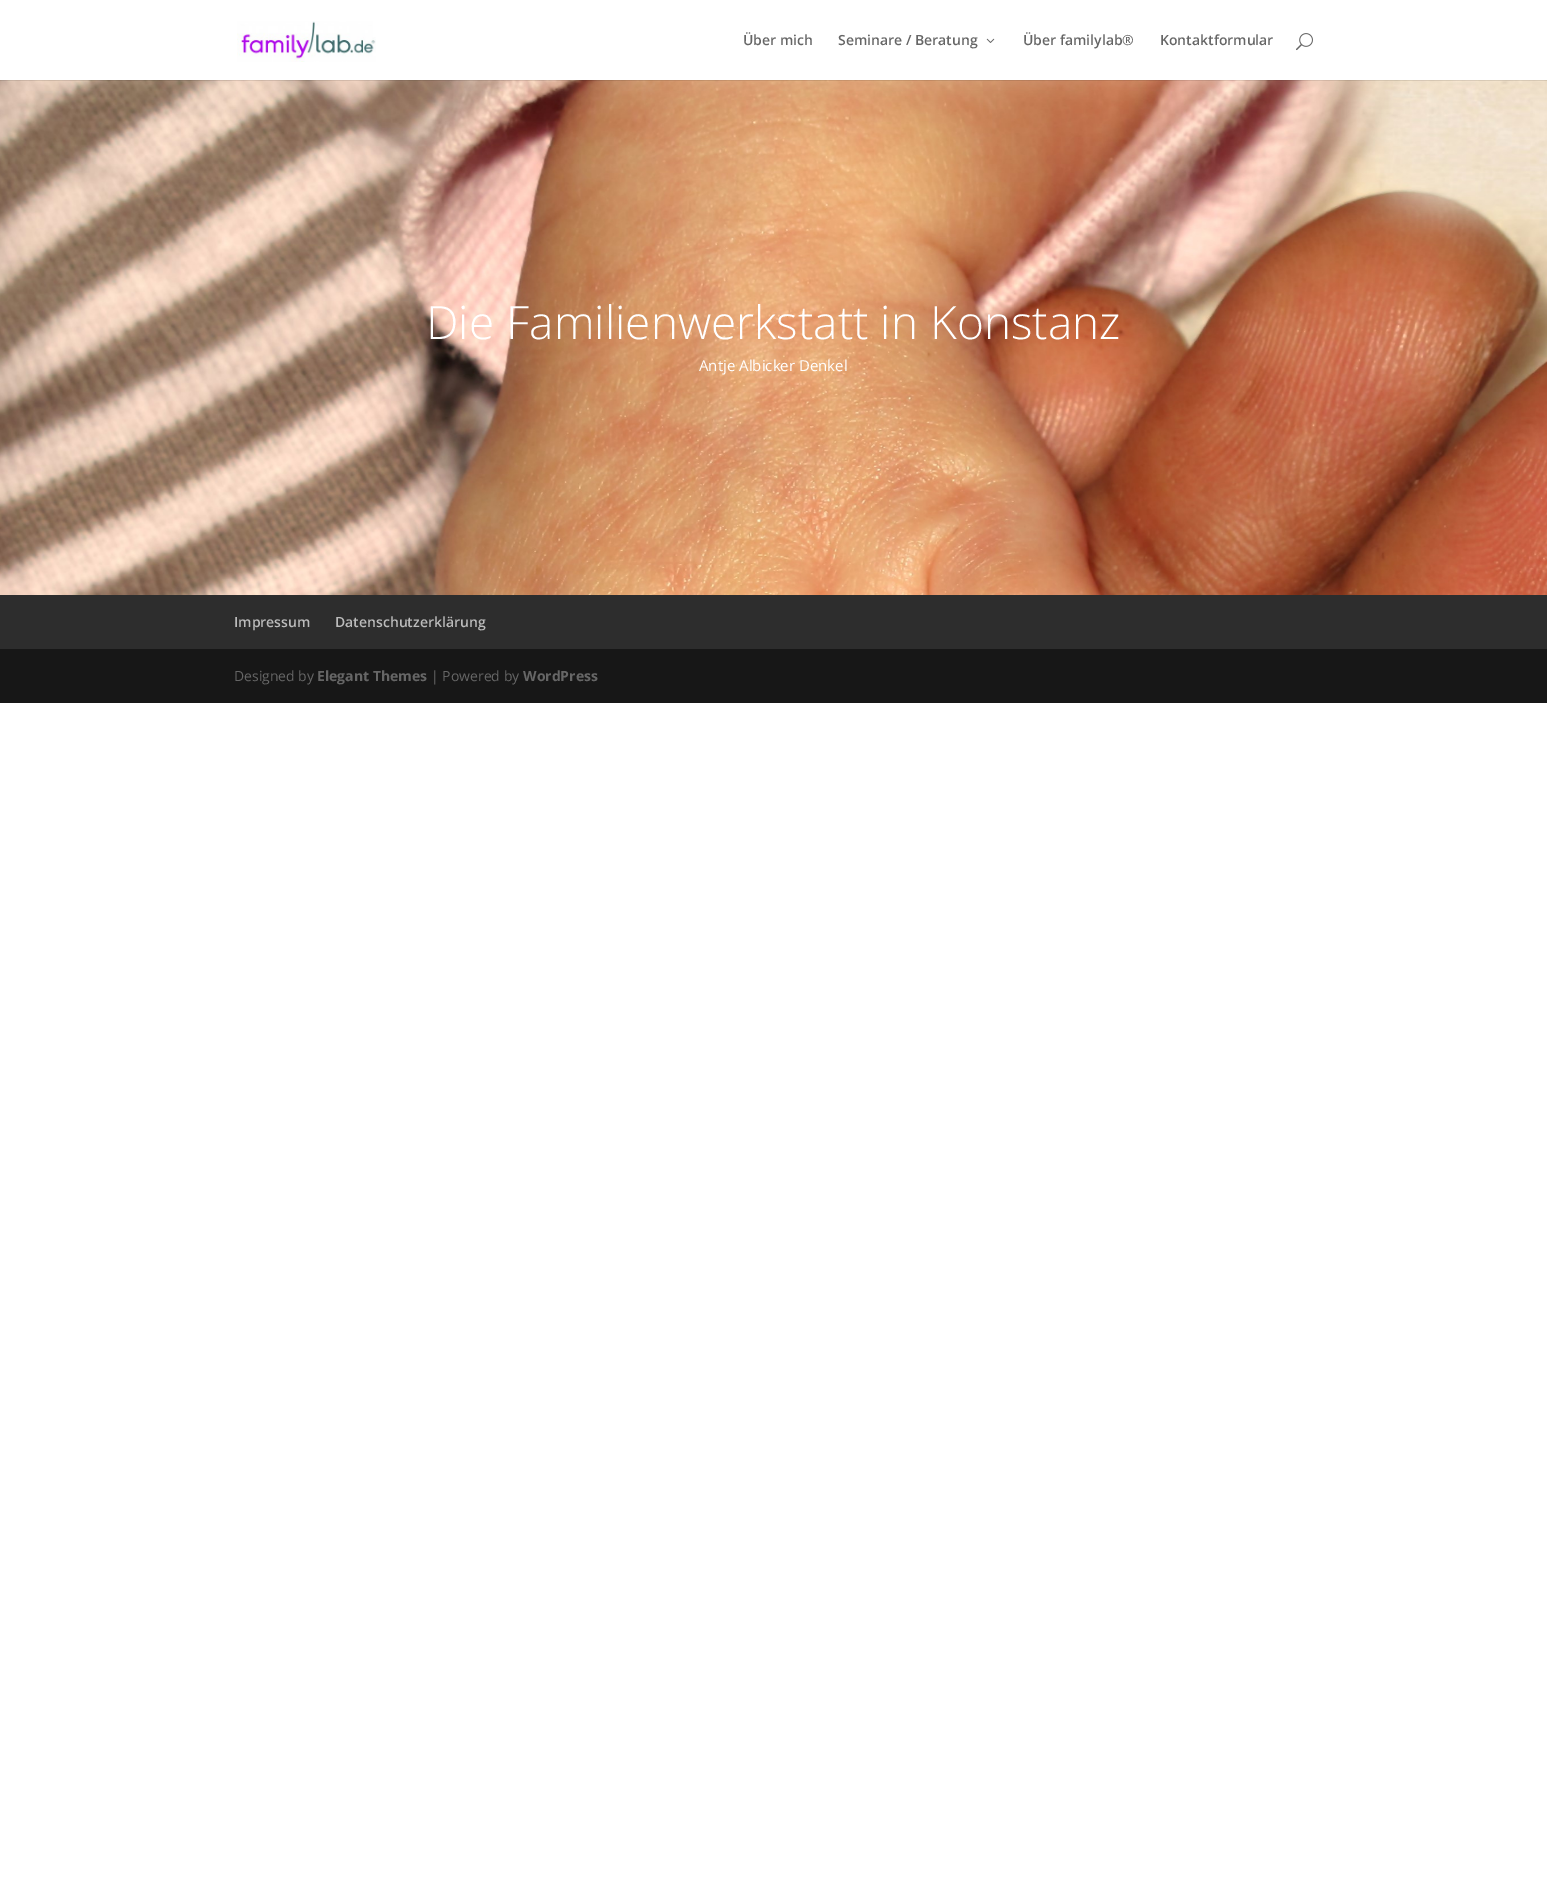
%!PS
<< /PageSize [1547 1887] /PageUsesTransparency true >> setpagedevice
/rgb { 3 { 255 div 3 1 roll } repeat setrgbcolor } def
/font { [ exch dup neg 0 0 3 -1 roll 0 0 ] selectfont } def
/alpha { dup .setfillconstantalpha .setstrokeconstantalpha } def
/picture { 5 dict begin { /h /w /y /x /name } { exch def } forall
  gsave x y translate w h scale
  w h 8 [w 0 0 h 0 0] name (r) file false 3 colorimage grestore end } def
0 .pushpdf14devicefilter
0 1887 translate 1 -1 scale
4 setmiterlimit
255 255 255 rgb
0 0 1547 1887 rectfill
(img/4.rgb) 0 80 1547 515 picture
0.1 alpha
0 0 0 rgb
0 80 1547 1 rectfill
1 alpha
(img/1.rgb) 237 21 139 41 picture
(img/2.rgb) 986 38 9 5 picture
(img/3.rgb) 1296 33 17 18 picture
45 45 45 rgb
0 595 1547 54 rectfill
23 23 23 rgb
0 649 1547 54 rectfill
/OpenSans-SemiBold 14 font
102 102 102 rgb
[
  [(Über mich) 743 45]
  [(Seminare / Beratung) 838 45]
  [(Über familylab®) 1023 45]
  [(Kontaktformular) 1160 45]
] { aload pop moveto show } forall
/OpenSans-Light 46 font
255 255 255 rgb
426 339 moveto (Die Familienwerkstatt in Konstanz) show
/OpenSans-Regular 15 font
699 371 moveto (Antje Albicker Denkel) show
/OpenSans-SemiBold 14 font
187 187 187 rgb
234 627 moveto (Impressum) show
335 627 moveto (Datenschutzerklärung) show
/OpenSans-Regular 14 font
102 102 102 rgb
234 681 moveto (Designed by) show
/OpenSans-Bold 14 font
317 681 moveto (Elegant Themes) show
/OpenSans-Regular 14 font
431 681 moveto (| Powered by) show
/OpenSans-Bold 14 font
523 681 moveto (WordPress) show
.poppdf14devicefilter showpage
